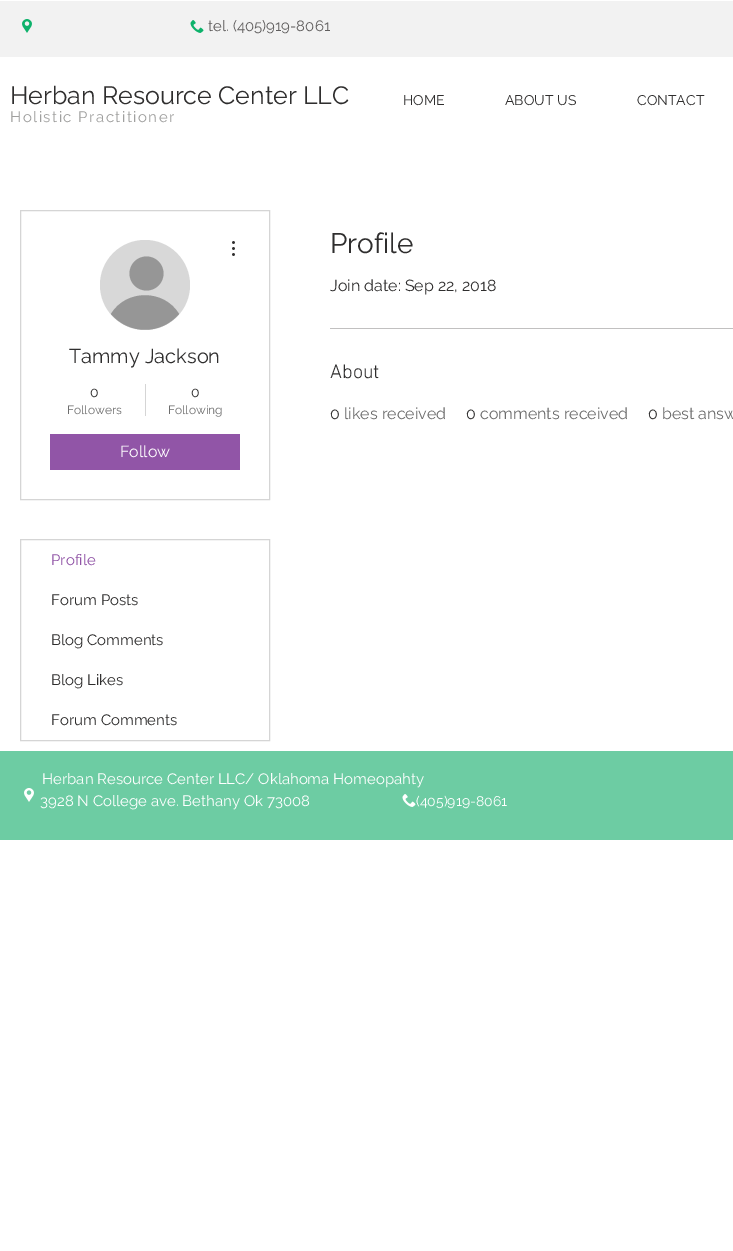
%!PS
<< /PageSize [733 1251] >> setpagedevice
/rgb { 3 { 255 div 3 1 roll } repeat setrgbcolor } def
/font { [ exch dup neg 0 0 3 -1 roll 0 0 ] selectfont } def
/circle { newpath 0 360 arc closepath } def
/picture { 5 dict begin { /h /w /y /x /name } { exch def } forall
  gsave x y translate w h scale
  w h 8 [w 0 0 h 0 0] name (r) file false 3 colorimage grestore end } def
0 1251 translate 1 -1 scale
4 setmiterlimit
255 255 255 rgb
0 0 733 1251 rectfill
242 242 242 rgb
0 1 733 56 rectfill
(img/1.rgb) 22 19 10 14 picture
(img/2.rgb) 190 20 14 13 picture
193 192 192 rgb
330 328 403 1 rectfill
213 213 213 rgb
20.5 210.5 249 289 rectstroke
216 216 216 rgb
145 285 45 circle fill
150 150 150 rgb
146.5 273.5 17 circle fill
179 314 moveto 161 335 129 335 111 314 curveto 126 289 164 289 179 314 curveto closepath fill
(img/3.rgb) 232 241 3 15 picture
213 213 213 rgb
145 384 1 32 rectfill
145 85 167 rgb
50 434 190 36 rectfill
213 213 213 rgb
20.5 539.5 249 201 rectstroke
109 204 163 rgb
0 751 733 89 rectfill
(img/4.rgb) 24 788 10 14 picture
(img/5.rgb) 402 794 14 13 picture
/Raleway-Regular 15 font
96 94 94 rgb
208 31 moveto (tel. \(405\)919-8061) show
/Raleway-Regular 25 font
47 46 46 rgb
10 104 moveto (Herban Resource Center LLC) show
/Raleway-Regular 14 font
[
  [(HOME) 403 105]
  [(ABOUT US) 505 105]
  [(CONTACT) 637 105]
] { aload pop moveto show } forall
/Raleway-Regular 15 font
160 160 159 rgb
10 122 moveto 1.5 0 (Holistic Practitioner) ashow
/Raleway-Regular 28 font
47 46 46 rgb
330 253 moveto (Profile) show
/Raleway-Regular 16 font
330 291 moveto (Join date: Sep 22, 2018) show
/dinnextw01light-Light 20 font
330 378 moveto (About) show
/Raleway-Regular 16 font
330 419 moveto (0) show
109 109 109 rgb
344 419 moveto (likes received) show
47 46 46 rgb
466 419 moveto (0) show
109 109 109 rgb
480 419 moveto (comments received) show
47 46 46 rgb
648 419 moveto (0) show
109 109 109 rgb
662 419 moveto (best answ) show
/Raleway-Regular 20 font
47 46 46 rgb
69 363 moveto (Tammy Jackson) show
/Raleway-Regular 14 font
90 397 moveto (0) show
/Raleway-Regular 12 font
109 109 109 rgb
67 414 moveto (Followers) show
/Raleway-Regular 14 font
47 46 46 rgb
191 397 moveto (0) show
/Raleway-Regular 12 font
109 109 109 rgb
168 414 moveto (Following) show
/Raleway-Regular 16 font
255 255 255 rgb
120 457 moveto (Follow) show
/Raleway-Regular 15 font
145 85 167 rgb
51 565 moveto (Profile) show
47 46 46 rgb
[
  [(Forum Posts) 51 605]
  [(Blog Comments) 51 645]
  [(Blog Likes) 51 685]
  [(Forum Comments) 51 725]
] { aload pop moveto show } forall
255 255 255 rgb
42 784 moveto (Herban Resource Center LLC/ Oklahoma Homeopahty) show
40 806 moveto (3928 N College ave. Bethany Ok 73008) show
/Raleway-Regular 14 font
416 806 moveto (\(405\)919-8061) show
showpage
